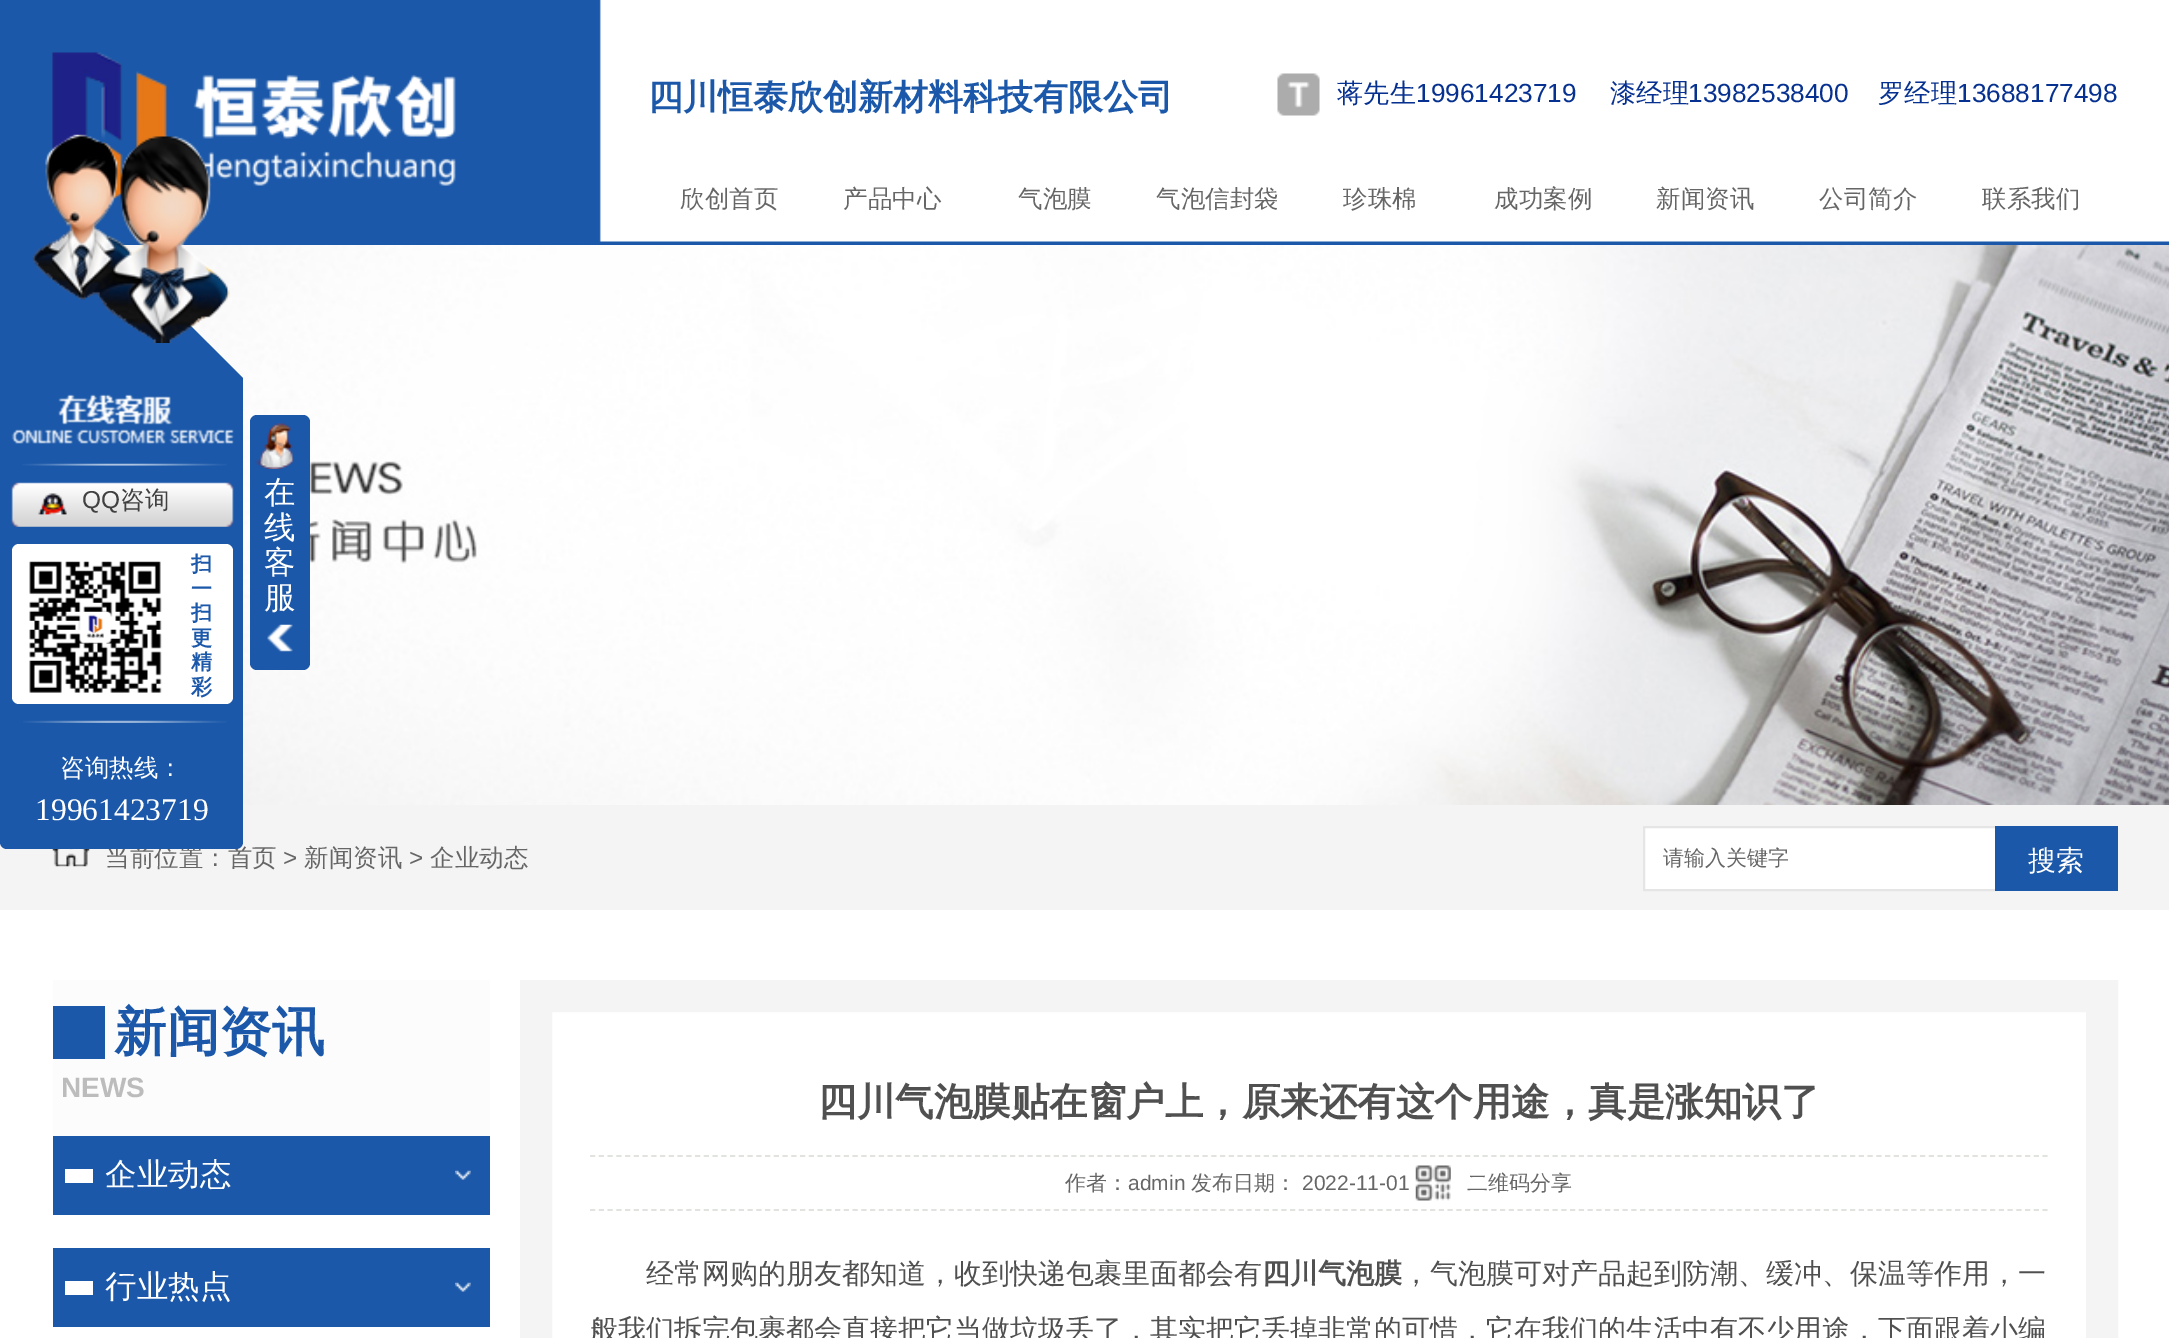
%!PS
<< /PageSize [2169 1338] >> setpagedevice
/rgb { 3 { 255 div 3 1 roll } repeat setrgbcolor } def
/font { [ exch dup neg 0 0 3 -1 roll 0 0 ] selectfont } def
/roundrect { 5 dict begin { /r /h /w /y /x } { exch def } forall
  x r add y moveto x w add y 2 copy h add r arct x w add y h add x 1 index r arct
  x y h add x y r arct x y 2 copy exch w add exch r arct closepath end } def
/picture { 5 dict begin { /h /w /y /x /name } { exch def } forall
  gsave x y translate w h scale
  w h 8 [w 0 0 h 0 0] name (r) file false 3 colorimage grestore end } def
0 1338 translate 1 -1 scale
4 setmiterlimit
255 255 255 rgb
0 0 2169 1338 rectfill
(img/1.rgb) 0 0 2169 245 picture
(img/2.rgb) 52 52 404 150 picture
(img/3.rgb) 1277 73 43 43 picture
(img/4.rgb) 120 245 2049 560 picture
27 88 169 rgb
0 135 moveto 243 378 lineto 0 378 lineto closepath fill
(img/5.rgb) 32 134 198 209 picture
250 415 60 255 7 roundrect fill
(img/12.rgb) 267 624 26 28 picture
(img/13.rgb) 255 423 39 46 picture
244 244 244 rgb
0 805 2169 105 rectfill
(img/14.rgb) 52 849 38 18 picture
255 255 255 rgb
1644 827 moveto 1996 827 lineto 1996 890 lineto 1644 890 lineto closepath gsave fill grestore
229 229 229 rgb
2 setlinewidth
stroke
[
  [1995 826 123 65 27 88 169]
  [53 980 437 156 252 252 252]
  [53 1006 52 53 27 88 169]
  [53 1136 437 79 27 88 169]
] { aload pop rgb rectfill } forall
(img/15.rgb) 455 1170 16 10 picture
255 255 255 rgb
65 1169 28 14 rectfill
27 88 169 rgb
53 1248 437 79 rectfill
(img/15.rgb) 455 1282 16 10 picture
255 255 255 rgb
65 1281 28 14 rectfill
244 244 244 rgb
32 setlinewidth
536 996 1566 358 rectstroke
225 227 223 rgb
1.8 setlinewidth
[5.25 3.5] 0 setdash
590 1156 moveto 2047.5 1156 lineto stroke
590 1210 moveto 2047.5 1210 lineto stroke
(img/16.rgb) 1415 1165 36 36 picture
/WenQuanYiZenHei-Bold 35 font
27 88 169 rgb
648 109 moveto (四川恒泰欣创新材料科技有限公司) show
/WenQuanYiZenHei-Medium 26.25 font
7 49 144 rgb
1337 102 moveto (蒋先生) show
/LiberationSans-Regular 26.25 font
1416 102 moveto (19961423719) show
/WenQuanYiZenHei-Medium 26.25 font
1610 102 moveto (漆经理) show
/LiberationSans-Regular 26.25 font
1688 102 moveto (13982538400) show
/WenQuanYiZenHei-Medium 26.25 font
1878 102 moveto (罗经理) show
/LiberationSans-Regular 26.25 font
1957 102 moveto (13688177498) show
/WenQuanYiZenHei-Medium 24.5 font
102 102 102 rgb
[
  [(欣创首页) 680 207]
  [(产品中心) 843 207]
  [(气泡膜) 1018 207]
  [(气泡信封袋) 1156 207]
  [(珍珠棉) 1343 207]
  [(成功案例) 1494 207]
  [(新闻资讯) 1656 207]
  [(公司简介) 1819 207]
  [(联系我们) 1982 207]
] { aload pop moveto show } forall
/WenQuanYiZenHei-Medium 31.5 font
255 255 255 rgb
[
  [(在) 264 503]
  [(线) 264 538]
  [(客) 264 573]
  [(服) 264 608]
] { aload pop moveto show } forall
/WenQuanYiZenHei-Medium 24.5 font
102 102 102 rgb
105 866 moveto (当前位置：首页) show
27 88 169 rgb
0 378 moveto 243 378 lineto 243 842 lineto 243 846 240 849 236 849 curveto 7 849 lineto 3 849 0 846 0 842 curveto closepath fill
/LiberationSerif-Regular 31.5 font
255 255 255 rgb
35 820 moveto (19961423719) show
/WenQuanYiZenHei-Medium 24.5 font
60 776 moveto (咨询热线：) show
(img/8.rgb) 11 482 223 45 picture
64 64 64 rgb
120 508 moveto (咨询) show
/LiberationSans-Regular 24.5 font
82 508 moveto (QQ) show
(img/9.rgb) 38 493 29 22 picture
255 255 255 rgb
12 544 221 160 7 roundrect fill
/WenQuanYiZenHei-Bold 21 font
27 88 169 rgb
[
  [(彩) 191 694]
  [(精) 191 669]
  [(更) 191 645]
  [(扫) 191 620]
  [(一) 191 596]
  [(扫) 191 571]
] { aload pop moveto show } forall
(img/10.rgb) 29 561 133 132 picture
(img/11.rgb) 23 720 204 3 picture
(img/7.rgb) 22 463 205 3 picture
(img/6.rgb) 11 394 223 50 picture
/LiberationSans-Regular 24.5 font
102 102 102 rgb
283 866 moveto (>) show
/WenQuanYiZenHei-Medium 24.5 font
304 866 moveto (新闻资讯) show
/LiberationSans-Regular 24.5 font
409 866 moveto (>) show
/WenQuanYiZenHei-Medium 24.5 font
430 866 moveto (企业动态) show
/WenQuanYiZenHei-Medium 21 font
1663 865 moveto (请输入关键字) show
/WenQuanYiZenHei-Medium 28 font
255 255 255 rgb
2028 870 moveto (搜索) show
/WenQuanYiZenHei-Bold 52.5 font
27 88 169 rgb
114 1050 moveto (新闻资讯) show
/LiberationSans-Bold 28 font
188 188 188 rgb
61 1097 moveto (NEWS) show
/WenQuanYiZenHei-Medium 31.5 font
255 255 255 rgb
105 1185 moveto (企业动态) show
105 1297 moveto (行业热点) show
/WenQuanYiZenHei-Bold 38.5 font
80 80 80 rgb
818 1115 moveto (四川气泡膜贴在窗户上，原来还有这个用途，真是涨知识了) show
/WenQuanYiZenHei-Medium 21 font
102 102 102 rgb
1065 1190 moveto (作者：) show
/LiberationSans-Regular 21 font
1128 1190 moveto (admin) show
/WenQuanYiZenHei-Medium 21 font
1191 1190 moveto (发布日期：) show
/LiberationSans-Regular 21 font
1302 1190 moveto (2022-11-01) show
/WenQuanYiZenHei-Medium 21 font
1467 1190 moveto (二维码分享) show
/WenQuanYiZenHei-Medium 28 font
80 80 80 rgb
646 1283 moveto (经常网购的朋友都知道，收到快递包裹里面都会有) show
/WenQuanYiZenHei-Bold 28 font
1262 1283 moveto (四川气泡膜) show
/WenQuanYiZenHei-Medium 28 font
1402 1283 moveto (，气泡膜可对产品起到防潮、缓冲、保温等作用，一) show
590 1339 moveto (般我们拆完包裹都会直接把它当做垃圾丢了，其实把它丢掉非常的可惜，它在我们的生活中有不少用途，下面跟着小编) show
showpage
